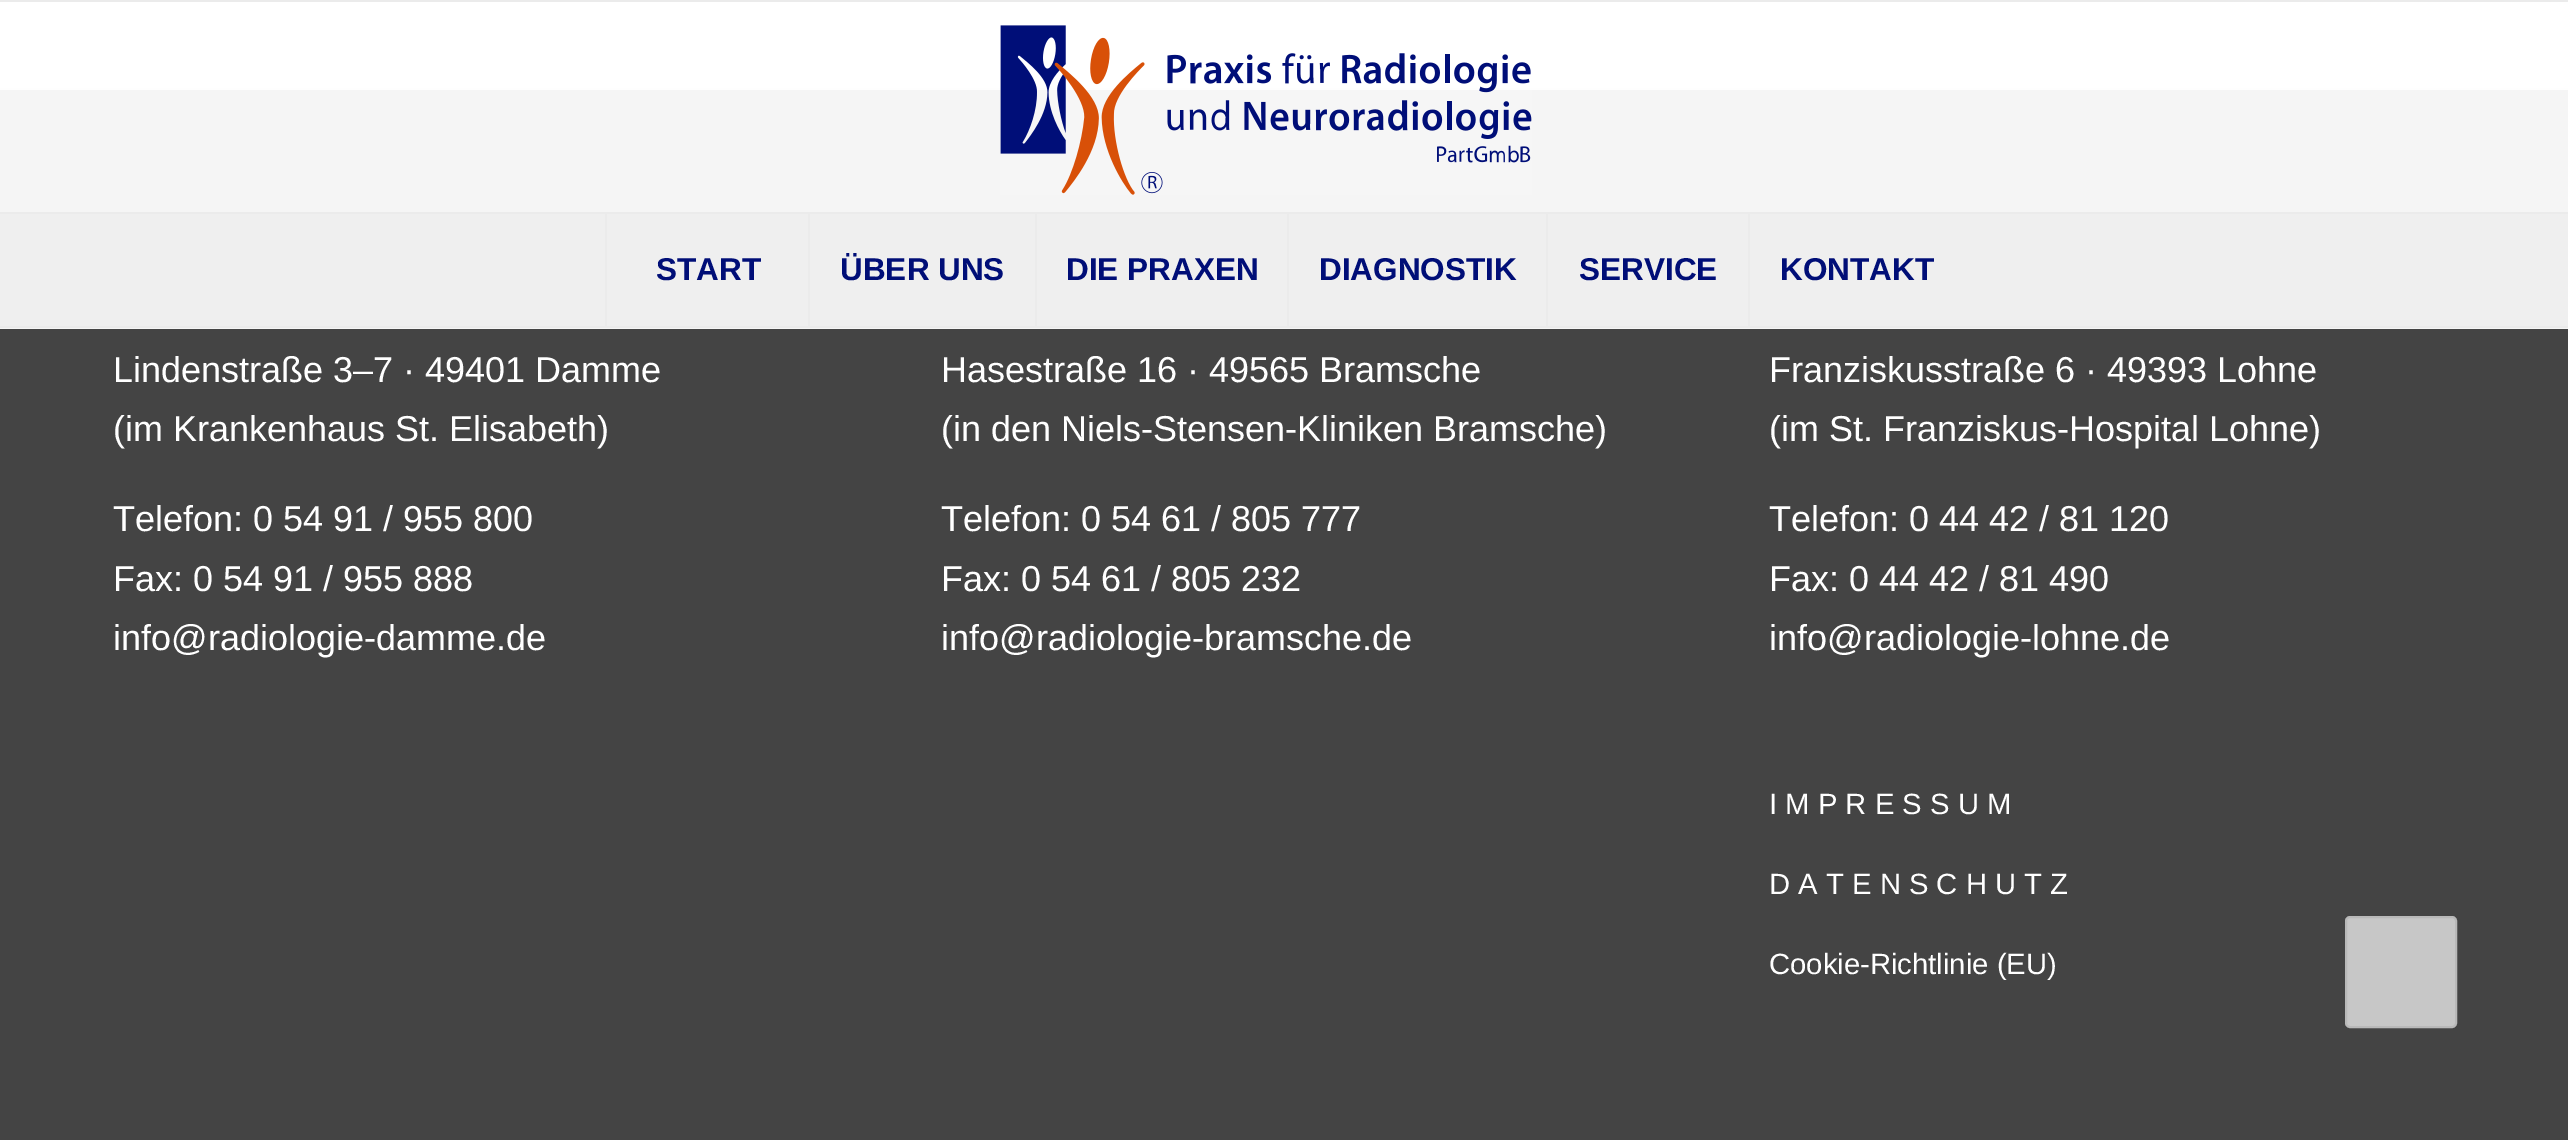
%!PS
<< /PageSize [2568 1140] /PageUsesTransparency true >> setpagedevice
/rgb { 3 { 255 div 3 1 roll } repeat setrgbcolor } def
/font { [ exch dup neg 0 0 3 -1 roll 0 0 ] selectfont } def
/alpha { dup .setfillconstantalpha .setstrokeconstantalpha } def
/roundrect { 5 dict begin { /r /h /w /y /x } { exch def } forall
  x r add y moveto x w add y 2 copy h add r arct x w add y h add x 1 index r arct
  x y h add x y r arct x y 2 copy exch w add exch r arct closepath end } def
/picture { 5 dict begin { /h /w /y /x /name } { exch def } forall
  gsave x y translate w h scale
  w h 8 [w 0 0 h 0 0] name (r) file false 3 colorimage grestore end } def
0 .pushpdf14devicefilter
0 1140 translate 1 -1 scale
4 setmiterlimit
255 255 255 rgb
0 0 2568 1140 rectfill
[
  [0 90 2568 1050 68 68 68]
  [0 88 2568 2 235 235 235]
] { aload pop rgb rectfill } forall
0.95 alpha
[
  [0 88 2568 241 255 255 255]
] { aload pop rgb rectfill } forall
1 alpha
[
  [0 0 2568 2 235 235 235]
  [0 326 2568 2 235 235 235]
] { aload pop rgb rectfill } forall
(img/1.rgb) 1000 25 532 170 picture
[
  [0 214 2568 112 239 239 239]
  [0 212 2568 2 235 235 235]
  [605 214 2 112 235 235 235]
  [808 214 2 112 235 235 235]
  [1035 214 2 112 235 235 235]
  [1287 214 2 112 235 235 235]
  [1546 214 2 112 235 235 235]
  [1748 214 2 112 235 235 235]
] { aload pop rgb rectfill } forall
199 199 199 rgb
2346 917 110 110 4 roundrect gsave fill grestore
185 185 185 rgb
2 setlinewidth
stroke
/LiberationSans-Bold 31.5 font
0 14 119 rgb
[
  [(START) 656 280]
  [(ÜBER UNS) 840 280]
  [(DIE PRAXEN) 1066 280]
  [(DIAGNOSTIK) 1319 280]
  [(SERVICE) 1579 280]
  [(KONTAKT) 1780 280]
] { aload pop moveto show } forall
/LiberationSans-Regular 36 font
255 255 255 rgb
[
  [(Lindenstraße 3–7 · 49401 Damme) 113 382]
  [(\(im Krankenhaus St. Elisabeth\)) 113 441]
  [(Telefon: 0 54 91 / 955 800) 113 531]
  [(Fax: 0 54 91 / 955 888) 113 591]
  [(info@radiologie-damme.de) 113 650]
  [(Hasestraße 16 · 49565 Bramsche) 941 382]
  [(\(in den Niels-Stensen-Kliniken Bramsche\)) 941 441]
  [(Telefon: 0 54 61 / 805 777) 941 531]
  [(Fax: 0 54 61 / 805 232) 941 591]
  [(info@radiologie-bramsche.de) 941 650]
  [(Franziskusstraße 6 · 49393 Lohne) 1769 382]
  [(\(im St. Franziskus-Hospital Lohne\)) 1769 441]
  [(Telefon: 0 44 42 / 81 120) 1769 531]
  [(Fax: 0 44 42 / 81 490) 1769 591]
  [(info@radiologie-lohne.de) 1769 650]
] { aload pop moveto show } forall
/LiberationSans-Regular 29.25 font
[
  [(I M P R E S S U M) 1769 814]
  [(D A T E N S C H U T Z) 1769 894]
  [(Cookie-Richtlinie \(EU\)) 1769 974]
] { aload pop moveto show } forall
.poppdf14devicefilter showpage
